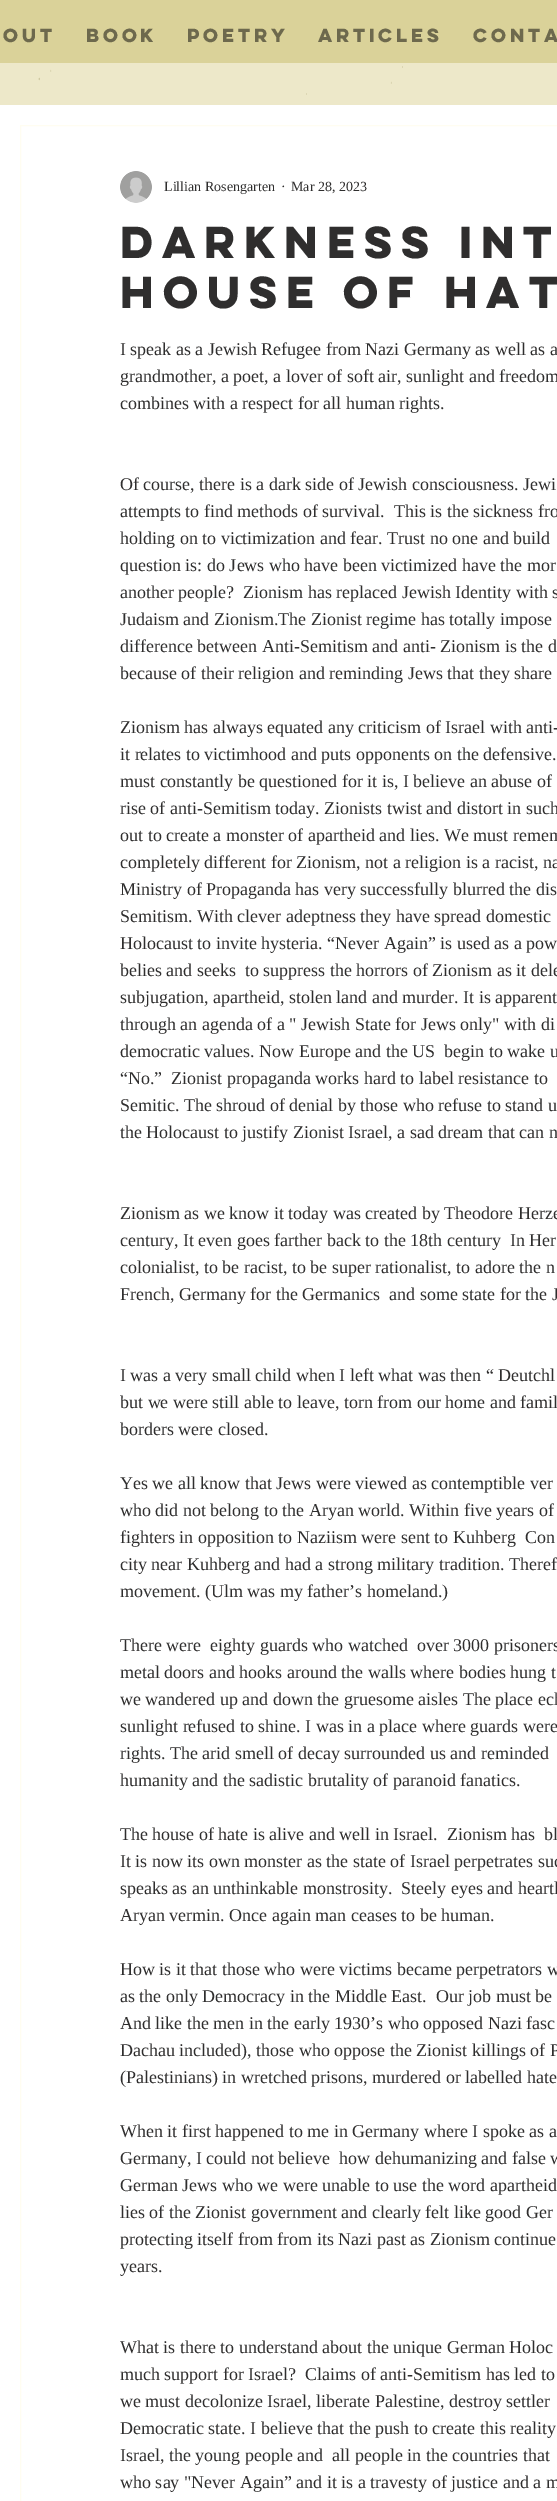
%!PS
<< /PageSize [557 2501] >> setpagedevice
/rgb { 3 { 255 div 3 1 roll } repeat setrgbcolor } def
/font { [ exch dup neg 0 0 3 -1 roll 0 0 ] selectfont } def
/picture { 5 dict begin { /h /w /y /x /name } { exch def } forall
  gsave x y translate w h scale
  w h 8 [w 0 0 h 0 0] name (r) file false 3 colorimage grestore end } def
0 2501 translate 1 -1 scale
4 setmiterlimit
237 232 201 rgb
0 0 557 2501 rectfill
218 210 153 rgb
0 0 557 63 rectfill
255 255 255 rgb
0 105 557 2396 rectfill
255 253 241 rgb
20.5 125.5 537 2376 rectstroke
(img/1.rgb) 120 171 32 32 picture
(img/2.rgb) 38 66 365 29 picture
/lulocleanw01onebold-Bold 17 font
109 105 77 rgb
[
  [(OUT) 3 42]
  [(BOOK) 86 42]
  [(POETRY) 187 42]
  [(ARTICLES) 318 42]
  [(CONTA) 473 42]
] { aload pop moveto show } forall
/LiberationSerif-Regular 14 font
47 46 46 rgb
[
  [(Lillian Rosengarten) 164 191]
  [(·) 281 191]
  [(Mar 28, 2023) 291 191]
] { aload pop moveto show } forall
/lulocleanw01onebold-Bold 40 font
120 258 moveto (Darkness InT) show
120 308 moveto (House of Hat) show
/LiberationSerif-Regular 18 font
[
  [(I speak as a Jewish Refugee from Nazi Germany as well as a) 120 355]
  [(grandmother, a poet, a lover of soft air, sunlight and freedom) 120 382]
  [(combines with a respect for all human rights.) 120 409]
  [(Of course, there is a dark side of Jewish consciousness. Jewi) 120 490]
  [(attempts to find methods of survival.  This is the sickness fro) 120 517]
  [(holding on to victimization and fear. Trust no one and build) 120 544]
  [(question is: do Jews who have been victimized have the mor) 120 571]
  [(another people?  Zionism has replaced Jewish Identity with s) 120 598]
  [(Judaism and Zionism.The Zionist regime has totally impose) 120 625]
  [(difference between Anti-Semitism and anti- Zionism is the d) 120 652]
  [(because of their religion and reminding Jews that they share) 120 679]
  [(Zionism has always equated any criticism of Israel with anti-) 120 733]
  [(it relates to victimhood and puts opponents on the defensive.) 120 760]
  [(must constantly be questioned for it is, I believe an abuse of) 120 787]
  [(rise of anti-Semitism today. Zionists twist and distort in such) 120 814]
  [(out to create a monster of apartheid and lies. We must remem) 120 841]
  [(completely different for Zionism, not a religion is a racist, na) 120 868]
  [(Ministry of Propaganda has very successfully blurred the dis) 120 895]
  [(Semitism. With clever adeptness they have spread domestic) 120 922]
  [(Holocaust to invite hysteria. “Never Again” is used as a pow) 120 949]
  [(belies and seeks  to suppress the horrors of Zionism as it dele) 120 976]
  [(subjugation, apartheid, stolen land and murder. It is apparent) 120 1003]
  [(through an agenda of a " Jewish State for Jews only" with di) 120 1030]
  [(democratic values. Now Europe and the US  begin to wake u) 120 1057]
  [(“No.”  Zionist propaganda works hard to label resistance to) 120 1084]
  [(Semitic. The shroud of denial by those who refuse to stand u) 120 1111]
  [(the Holocaust to justify Zionist Israel, a sad dream that can n) 120 1138]
  [(Zionism as we know it today was created by Theodore Herze) 120 1219]
  [(century, It even goes farther back to the 18th century  In Her) 120 1246]
  [(colonialist, to be racist, to be super rationalist, to adore the n) 120 1273]
  [(French, Germany for the Germanics  and some state for the J) 120 1300]
  [(I was a very small child when I left what was then “ Deutchl) 120 1381]
  [(but we were still able to leave, torn from our home and famil) 120 1408]
  [(borders were closed.) 120 1435]
  [(Yes we all know that Jews were viewed as contemptible ver) 120 1489]
  [(who did not belong to the Aryan world. Within five years of) 120 1516]
  [(fighters in opposition to Naziism were sent to Kuhberg  Con) 120 1543]
  [(city near Kuhberg and had a strong military tradition. Theref) 120 1570]
  [(movement. \(Ulm was my father’s homeland.\)) 120 1597]
  [(There were  eighty guards who watched  over 3000 prisoners) 120 1651]
  [(metal doors and hooks around the walls where bodies hung t) 120 1678]
  [(we wandered up and down the gruesome aisles The place ech) 120 1705]
  [(sunlight refused to shine. I was in a place where guards were) 120 1732]
  [(rights. The arid smell of decay surrounded us and reminded) 120 1759]
  [(humanity and the sadistic brutality of paranoid fanatics.) 120 1786]
  [(The house of hate is alive and well in Israel.  Zionism has  bl) 120 1840]
  [(It is now its own monster as the state of Israel perpetrates suc) 120 1867]
  [(speaks as an unthinkable monstrosity.  Steely eyes and heartl) 120 1894]
  [(Aryan vermin. Once again man ceases to be human.) 120 1921]
  [(How is it that those who were victims became perpetrators w) 120 1975]
  [(as the only Democracy in the Middle East.  Our job must be) 120 2002]
  [(And like the men in the early 1930’s who opposed Nazi fasc) 120 2029]
  [(Dachau included\), those who oppose the Zionist killings of P) 120 2056]
  [(\(Palestinians\) in wretched prisons, murdered or labelled hate) 120 2083]
  [(When it first happened to me in Germany where I spoke as a) 120 2137]
  [(Germany, I could not believe  how dehumanizing and false w) 120 2164]
  [(German Jews who we were unable to use the word apartheid) 120 2191]
  [(lies of the Zionist government and clearly felt like good Ger) 120 2218]
  [(protecting itself from from its Nazi past as Zionism continue) 120 2245]
  [(years.) 120 2272]
  [(What is there to understand about the unique German Holoc) 120 2353]
  [(much support for Israel?  Claims of anti-Semitism has led to) 120 2380]
  [(we must decolonize Israel, liberate Palestine, destroy settler) 120 2407]
  [(Democratic state. I believe that the push to create this reality) 120 2434]
  [(Israel, the young people and  all people in the countries that) 120 2461]
  [(who say "Never Again” and it is a travesty of justice and a m) 120 2488]
] { aload pop moveto show } forall
showpage
